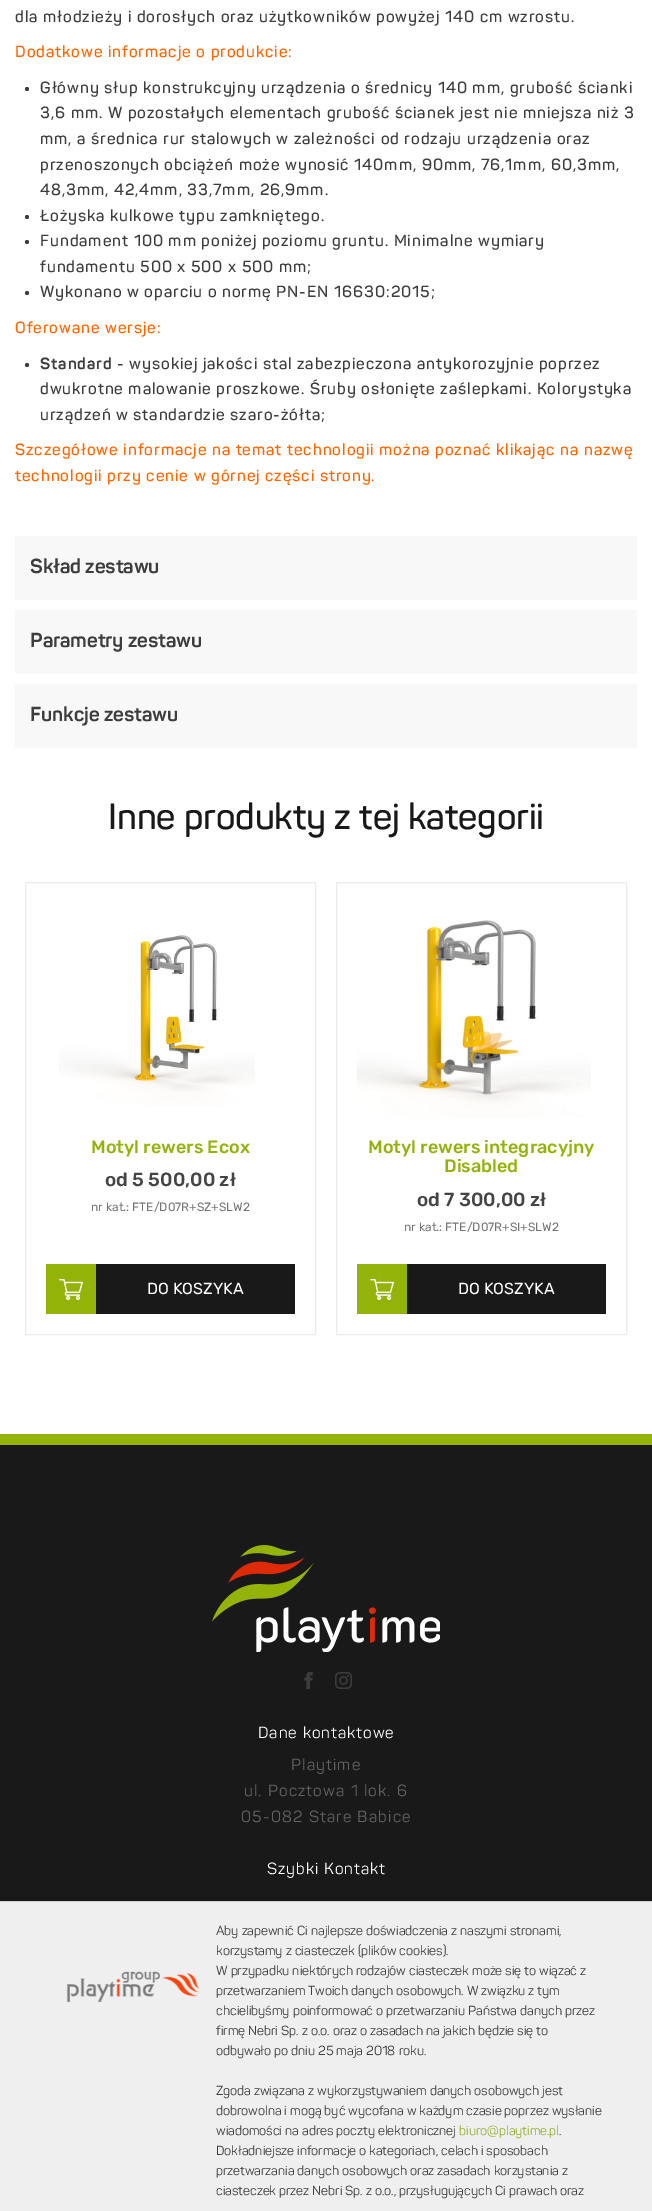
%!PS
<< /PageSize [652 2211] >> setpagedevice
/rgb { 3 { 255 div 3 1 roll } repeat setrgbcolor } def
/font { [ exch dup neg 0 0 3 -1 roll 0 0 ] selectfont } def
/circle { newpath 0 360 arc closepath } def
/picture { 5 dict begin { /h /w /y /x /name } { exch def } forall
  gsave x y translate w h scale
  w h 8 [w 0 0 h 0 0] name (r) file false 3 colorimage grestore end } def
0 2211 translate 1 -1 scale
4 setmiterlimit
255 255 255 rgb
0 0 652 2211 rectfill
61 61 61 rgb
27 89 2 circle fill
27 217 2 circle fill
27 242 2 circle fill
27 293 2 circle fill
27 365 2 circle fill
[
  [15 536 622 64 248 248 248]
  [15 610 622 64 248 248 248]
  [15 684 622 64 248 248 248]
] { aload pop rgb rectfill } forall
235 235 235 rgb
25.5 882.5 290 452 rectstroke
(img/1.rgb) 59 935 196 171 picture
25 25 25 rgb
96 1264 199 50 rectfill
147 179 8 rgb
46 1264 50 50 rectfill
(img/2.rgb) 59 1279 24 21 picture
235 235 235 rgb
336.5 882.5 290 452 rectstroke
(img/3.rgb) 357 920 234 198 picture
25 25 25 rgb
407 1264 199 50 rectfill
147 179 8 rgb
357 1264 50 50 rectfill
(img/2.rgb) 370 1279 24 21 picture
25 25 25 rgb
0 1445 652 456 rectfill
147 179 8 rgb
0 1434 652 11 rectfill
(img/4.rgb) 212 1545 228 107 picture
(img/5.rgb) 304 1672 9 17 picture
(img/6.rgb) 335 1672 17 17 picture
239 239 239 rgb
0 1902 652 309 rectfill
211 208 208 rgb
0 1901 652 1 rectfill
(img/7.rgb) 66 1971 133 31 picture
/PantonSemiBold-SemiBold 16 font
61 61 61 rgb
15 22 moveto 1 0 (dla młodzieży i dorosłych oraz użytkowników powyżej 140 cm wzrostu.) ashow
255 102 0 rgb
15 57 moveto 1 0 (Dodatkowe informacje o produkcie:) ashow
61 61 61 rgb
40 93 moveto 1 0 (Główny słup konstrukcyjny urządzenia o średnicy 140 mm, grubość ścianki) ashow
40 118 moveto 1 0 (3,6 mm. W pozostałych elementach grubość ścianek jest nie mniejsza niż 3) ashow
40 144 moveto 1 0 (mm, a średnica rur stalowych w zależności od rodzaju urządzenia oraz) ashow
40 170 moveto 1 0 (przenoszonych obciążeń może wynosić 140mm, 90mm, 76,1mm, 60,3mm,) ashow
40 195 moveto 1 0 (48,3mm, 42,4mm, 33,7mm, 26,9mm.) ashow
40 221 moveto 1 0 (Łożyska kulkowe typu zamkniętego.) ashow
40 246 moveto 1 0 (Fundament 100 mm poniżej poziomu gruntu. Minimalne wymiary) ashow
40 272 moveto 1 0 (fundamentu 500 x 500 x 500 mm;) ashow
40 297 moveto 1 0 (Wykonano w oparciu o normę PN-EN 16630:2015;) ashow
255 102 0 rgb
15 333 moveto 1 0 (Oferowane wersje:) ashow
/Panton-Bold 16 font
61 61 61 rgb
40 369 moveto 1 0 (Standard) ashow
/PantonSemiBold-SemiBold 16 font
117 369 moveto 1 0 (- wysokiej jakości stal zabezpieczona antykorozyjnie poprzez) ashow
40 394 moveto 1 0 (dwukrotne malowanie proszkowe. Śruby osłonięte zaślepkami. Kolorystyka) ashow
40 420 moveto 1 0 (urządzeń w standardzie szaro-żółta;) ashow
255 102 0 rgb
15 455 moveto 1 0 (Szczegółowe informacje na temat technologii można poznać klikając na nazwę) ashow
15 481 moveto 1 0 (technologii przy cenie w górnej części strony.) ashow
/Panton-Bold 20 font
61 61 61 rgb
[
  [(Skład zestawu) 30 573]
  [(Parametry zestawu) 30 647]
  [(Funkcje zestawu) 30 721]
] { aload pop moveto show } forall
/PantonSemiBold-SemiBold 36 font
25 25 25 rgb
108 829 moveto (Inne produkty z tej kategorii) show
/Rubik-Medium 18 font
147 179 8 rgb
91 1153 moveto (Motyl rewers Ecox) show
/Rubik-Medium 19 font
69 68 68 rgb
105 1186 moveto (od 5 500,00 zł) show
/Rubik-Regular 12 font
117 117 117 rgb
91 1211 moveto (nr kat.: FTE/D07R+SZ+SLW2) show
/Rubik-Regular 16 font
255 255 255 rgb
147 1294 moveto (DO KOSZYKA) show
/Rubik-Medium 18 font
147 179 8 rgb
368 1153 moveto (Motyl rewers integracyjny) show
444 1172 moveto (Disabled) show
/Rubik-Medium 19 font
69 68 68 rgb
417 1206 moveto (od 7 300,00 zł) show
/Rubik-Regular 12 font
117 117 117 rgb
404 1231 moveto (nr kat.: FTE/D07R+SI+SLW2) show
/Rubik-Regular 16 font
255 255 255 rgb
458 1294 moveto (DO KOSZYKA) show
/Panton-Regular 16 font
258 1738 moveto 1 0 (Dane kontaktowe) ashow
99 99 99 rgb
291 1770 moveto 1.2 0 (Playtime) ashow
244 1796 moveto 1.2 0 (ul. Pocztowa 1 lok. 6) ashow
241 1822 moveto 1.2 0 (05-082 Stare Babice) ashow
255 255 255 rgb
267 1874 moveto 1 0 (Szybki Kontakt) ashow
/Panton-Regular 13 font
61 61 61 rgb
[
  [(Aby zapewnić Ci najlepsze doświadczenia z naszymi stronami,) 216 1935]
  [(korzystamy z ciasteczek \(plików cookies\).) 216 1955]
  [(W przypadku niektórych rodzajów ciasteczek może się to wiązać z) 216 1975]
  [(przetwarzaniem Twoich danych osobowych. W związku z tym) 216 1995]
  [(chcielibyśmy poinformować o przetwarzaniu Państwa danych przez) 216 2015]
  [(firmę Nebri Sp. z o.o. oraz o zasadach na jakich będzie się to) 216 2035]
  [(odbywało po dniu 25 maja 2018 roku.) 216 2055]
  [(Zgoda związana z wykorzystywaniem danych osobowych jest) 216 2095]
  [(dobrowolna i mogą być wycofana w każdym czasie poprzez wysłanie) 216 2115]
  [(wiadomości na adres poczty elektronicznej) 216 2135]
] { aload pop moveto show } forall
148 177 49 rgb
459 2135 moveto (biuro@playtime.pl) show
61 61 61 rgb
[
  [(.) 559 2135]
  [(Dokładniejsze informacje o kategoriach, celach i sposobach) 216 2155]
  [(przetwarzania danych osobowych oraz zasadach korzystania z) 216 2175]
  [(ciasteczek przez Nebri Sp. z o.o., przysługujących Ci prawach oraz) 216 2195]
] { aload pop moveto show } forall
showpage
